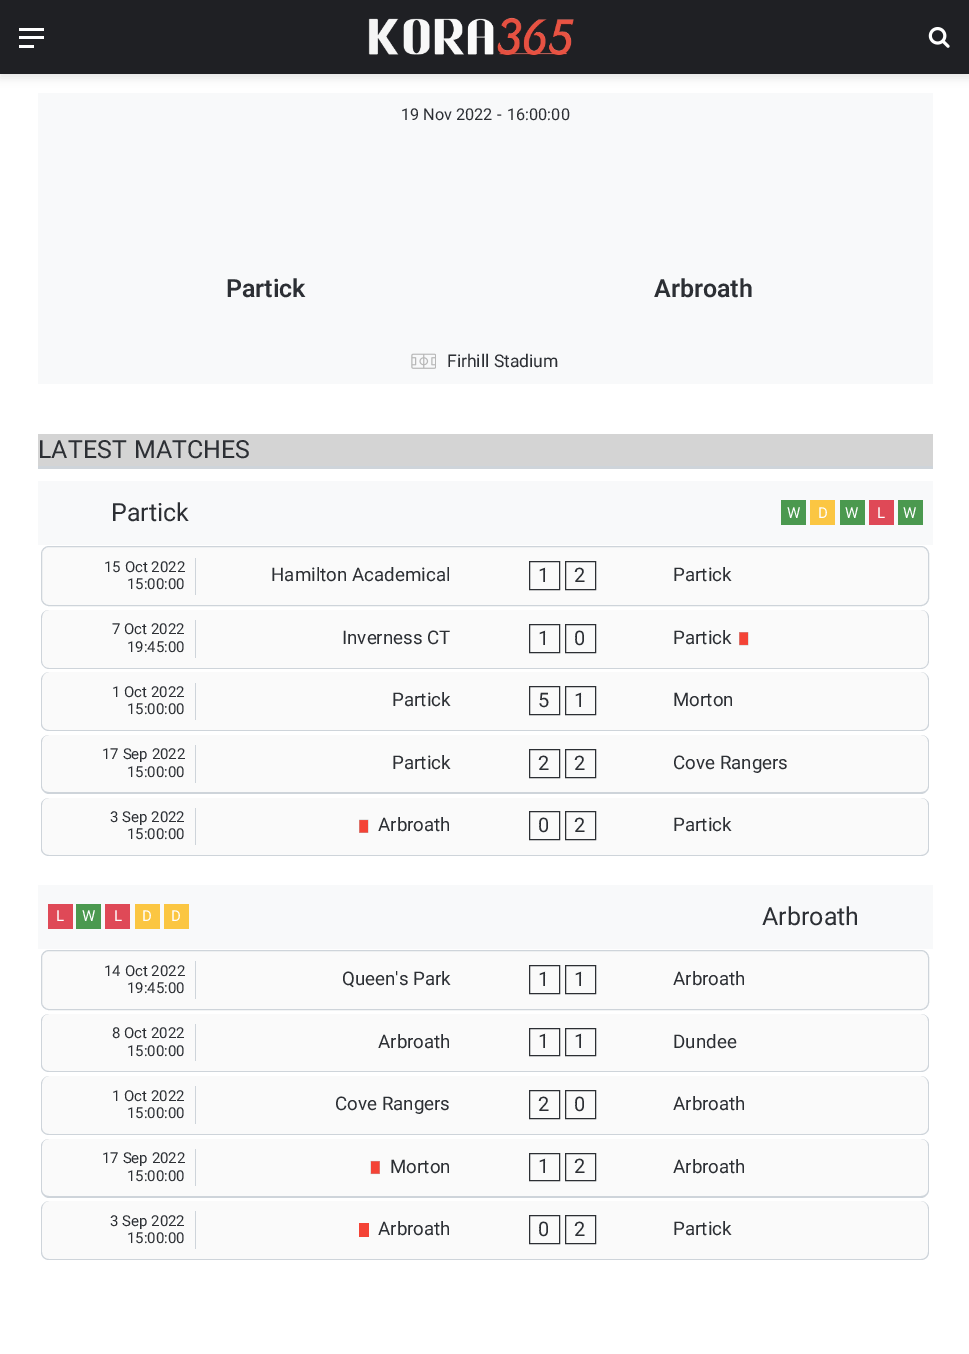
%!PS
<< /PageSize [969 1354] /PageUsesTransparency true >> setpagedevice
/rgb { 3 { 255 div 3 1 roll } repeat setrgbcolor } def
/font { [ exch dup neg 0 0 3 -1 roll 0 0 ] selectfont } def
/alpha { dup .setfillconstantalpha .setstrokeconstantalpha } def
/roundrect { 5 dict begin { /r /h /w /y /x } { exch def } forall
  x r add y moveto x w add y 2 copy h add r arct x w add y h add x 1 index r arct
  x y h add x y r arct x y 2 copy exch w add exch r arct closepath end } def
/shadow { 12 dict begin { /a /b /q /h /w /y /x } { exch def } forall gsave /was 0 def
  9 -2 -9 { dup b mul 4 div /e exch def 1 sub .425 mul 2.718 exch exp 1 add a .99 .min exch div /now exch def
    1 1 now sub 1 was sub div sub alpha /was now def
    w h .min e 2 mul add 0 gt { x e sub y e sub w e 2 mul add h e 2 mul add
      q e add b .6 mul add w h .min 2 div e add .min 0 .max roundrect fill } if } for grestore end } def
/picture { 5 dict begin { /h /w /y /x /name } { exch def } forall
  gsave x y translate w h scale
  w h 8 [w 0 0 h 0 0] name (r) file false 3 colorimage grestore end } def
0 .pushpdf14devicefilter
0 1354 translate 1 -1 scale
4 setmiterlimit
255 255 255 rgb
0 0 969 1354 rectfill
0 0 0 rgb
0 4 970 74 0 4.5 0.1 shadow
[
  [0 0 969 74 31 32 36]
  [19 36 25 3 255 255 255]
  [19 28 25 3 255 255 255]
  [19 45 15 3 255 255 255]
] { aload pop rgb rectfill } forall
(img/1.rgb) 368 17 206 39 picture
(img/2.rgb) 928 27 22 21 picture
248 249 250 rgb
38 93 895 291 rectfill
(img/3.rgb) 411 353 25 16 picture
[
  [38 434 895 32 212 212 212]
  [38 466 895 3 206 212 218]
  [38 481 895 64 248 249 250]
  [781 500 25 25 75 153 79]
  [810 500 25 25 251 198 66]
  [840 500 25 25 75 153 79]
  [869 500 25 25 223 73 87]
  [898 500 25 25 75 153 79]
] { aload pop rgb rectfill } forall
250 250 250 rgb
41.5 546.5 887 59 7.5 roundrect gsave fill grestore
206 212 218 rgb
stroke
195 558 1 37 rectfill
44 47 52 rgb
529.5 561.5 30 28 rectstroke
565.5 561.5 30 28 rectstroke
250 250 250 rgb
49 610 moveto 921 610 lineto 925 610 928 613 928 618 curveto 928 661 lineto 928 665 925 668 921 668 curveto 49 668 lineto 45 668 42 665 42 661 curveto 42 618 lineto 42 613 45 610 49 610 curveto closepath fill
206 212 218 rgb
49 610 moveto 921 610 lineto 925 610 929 613 929 618 curveto 929 661 lineto 929 665 925 669 921 669 curveto 49 669 lineto 45 669 41 665 41 661 curveto 41 618 lineto 41 613 45 610 49 610 curveto closepath 49 610 moveto 921 610 lineto 925 610 928 613 928 618 curveto 928 661 lineto 928 665 925 668 921 668 curveto 49 668 lineto 45 668 42 665 42 661 curveto 42 618 lineto 42 613 45 610 49 610 curveto closepath eofill
195 620 1 38 rectfill
44 47 52 rgb
529.5 624.5 30 28 rectstroke
565.5 624.5 30 28 rectstroke
(img/4.rgb) 739 632 10 14 picture
250 250 250 rgb
49 672 moveto 921 672 lineto 925 672 928 676 928 680 curveto 928 724 lineto 928 727 925 730 921 730 curveto 49 730 lineto 45 730 42 727 42 724 curveto 42 680 lineto 42 676 45 672 49 672 curveto closepath fill
206 212 218 rgb
49 672 moveto 921 672 lineto 925 672 929 676 929 680 curveto 929 724 lineto 929 728 925 731 921 731 curveto 49 731 lineto 45 731 41 728 41 724 curveto 41 680 lineto 41 676 45 672 49 672 curveto closepath 49 672 moveto 921 672 lineto 925 672 928 676 928 680 curveto 928 724 lineto 928 727 925 730 921 730 curveto 49 730 lineto 45 730 42 727 42 724 curveto 42 680 lineto 42 676 45 672 49 672 curveto closepath eofill
195 683 1 37 rectfill
44 47 52 rgb
529.5 686.5 30 28 rectstroke
565.5 686.5 30 28 rectstroke
250 250 250 rgb
49 735 moveto 921 735 lineto 925 735 928 738 928 742 curveto 928 786 lineto 928 790 925 792 921 792 curveto 49 792 lineto 45 792 42 790 42 786 curveto 42 742 lineto 42 738 45 735 49 735 curveto closepath fill
206 212 218 rgb
49 735 moveto 921 735 lineto 925 735 929 738 929 742 curveto 929 786 lineto 929 790 925 794 921 794 curveto 49 794 lineto 45 794 41 790 41 786 curveto 41 742 lineto 41 738 45 735 49 735 curveto closepath 49 735 moveto 921 735 lineto 925 735 928 738 928 742 curveto 928 786 lineto 928 790 925 792 921 792 curveto 49 792 lineto 45 792 42 790 42 786 curveto 42 742 lineto 42 738 45 735 49 735 curveto closepath eofill
195 745 1 38 rectfill
44 47 52 rgb
529.5 749.5 30 28 rectstroke
565.5 749.5 30 28 rectstroke
250 250 250 rgb
49 798 moveto 921 798 lineto 925 798 928 801 928 805 curveto 928 849 lineto 928 852 925 855 921 855 curveto 49 855 lineto 45 855 42 852 42 849 curveto 42 805 lineto 42 801 45 798 49 798 curveto closepath fill
206 212 218 rgb
49 798 moveto 921 798 lineto 925 798 929 801 929 805 curveto 929 849 lineto 929 853 925 856 921 856 curveto 49 856 lineto 45 856 41 853 41 849 curveto 41 805 lineto 41 801 45 798 49 798 curveto closepath 49 798 moveto 921 798 lineto 925 798 928 801 928 805 curveto 928 849 lineto 928 852 925 855 921 855 curveto 49 855 lineto 45 855 42 852 42 849 curveto 42 805 lineto 42 801 45 798 49 798 curveto closepath eofill
195 808 1 37 rectfill
(img/5.rgb) 359 819 10 14 picture
44 47 52 rgb
529.5 811.5 30 28 rectstroke
565.5 811.5 30 28 rectstroke
[
  [38 885 895 64 248 249 250]
  [48 904 25 25 223 73 87]
  [76 904 25 25 75 153 79]
  [105 904 25 25 223 73 87]
  [135 904 25 25 251 198 66]
  [164 904 25 25 251 198 66]
] { aload pop rgb rectfill } forall
250 250 250 rgb
41.5 950.5 887 59 7.5 roundrect gsave fill grestore
206 212 218 rgb
stroke
195 961 1 38 rectfill
44 47 52 rgb
529.5 965.5 30 28 rectstroke
565.5 965.5 30 28 rectstroke
250 250 250 rgb
49 1014 moveto 921 1014 lineto 925 1014 928 1017 928 1021 curveto 928 1065 lineto 928 1068 925 1071 921 1071 curveto 49 1071 lineto 45 1071 42 1068 42 1065 curveto 42 1021 lineto 42 1017 45 1014 49 1014 curveto closepath fill
206 212 218 rgb
49 1014 moveto 921 1014 lineto 925 1014 929 1017 929 1021 curveto 929 1065 lineto 929 1069 925 1072 921 1072 curveto 49 1072 lineto 45 1072 41 1069 41 1065 curveto 41 1021 lineto 41 1017 45 1014 49 1014 curveto closepath 49 1014 moveto 921 1014 lineto 925 1014 928 1017 928 1021 curveto 928 1065 lineto 928 1068 925 1071 921 1071 curveto 49 1071 lineto 45 1071 42 1068 42 1065 curveto 42 1021 lineto 42 1017 45 1014 49 1014 curveto closepath eofill
195 1024 1 37 rectfill
44 47 52 rgb
529.5 1028.5 30 27 rectstroke
565.5 1028.5 30 27 rectstroke
250 250 250 rgb
49 1076 moveto 921 1076 lineto 925 1076 928 1080 928 1084 curveto 928 1128 lineto 928 1131 925 1134 921 1134 curveto 49 1134 lineto 45 1134 42 1131 42 1128 curveto 42 1084 lineto 42 1080 45 1076 49 1076 curveto closepath fill
206 212 218 rgb
49 1076 moveto 921 1076 lineto 925 1076 929 1080 929 1084 curveto 929 1128 lineto 929 1132 925 1135 921 1135 curveto 49 1135 lineto 45 1135 41 1132 41 1128 curveto 41 1084 lineto 41 1080 45 1076 49 1076 curveto closepath 49 1076 moveto 921 1076 lineto 925 1076 928 1080 928 1084 curveto 928 1128 lineto 928 1131 925 1134 921 1134 curveto 49 1134 lineto 45 1134 42 1131 42 1128 curveto 42 1084 lineto 42 1080 45 1076 49 1076 curveto closepath eofill
195 1086 1 38 rectfill
44 47 52 rgb
529.5 1090.5 30 28 rectstroke
565.5 1090.5 30 28 rectstroke
250 250 250 rgb
49 1139 moveto 921 1139 lineto 925 1139 928 1142 928 1146 curveto 928 1190 lineto 928 1193 925 1196 921 1196 curveto 49 1196 lineto 45 1196 42 1193 42 1190 curveto 42 1146 lineto 42 1142 45 1139 49 1139 curveto closepath fill
206 212 218 rgb
49 1139 moveto 921 1139 lineto 925 1139 929 1142 929 1146 curveto 929 1190 lineto 929 1194 925 1198 921 1198 curveto 49 1198 lineto 45 1198 41 1194 41 1190 curveto 41 1146 lineto 41 1142 45 1139 49 1139 curveto closepath 49 1139 moveto 921 1139 lineto 925 1139 928 1142 928 1146 curveto 928 1190 lineto 928 1193 925 1196 921 1196 curveto 49 1196 lineto 45 1196 42 1193 42 1190 curveto 42 1146 lineto 42 1142 45 1139 49 1139 curveto closepath eofill
195 1149 1 37 rectfill
(img/6.rgb) 370 1160 10 15 picture
44 47 52 rgb
529.5 1153.5 30 27 rectstroke
565.5 1153.5 30 27 rectstroke
250 250 250 rgb
49 1201 moveto 921 1201 lineto 925 1201 928 1205 928 1209 curveto 928 1252 lineto 928 1256 925 1259 921 1259 curveto 49 1259 lineto 45 1259 42 1256 42 1252 curveto 42 1209 lineto 42 1205 45 1201 49 1201 curveto closepath fill
206 212 218 rgb
49 1201 moveto 921 1201 lineto 925 1201 929 1205 929 1209 curveto 929 1252 lineto 929 1257 925 1260 921 1260 curveto 49 1260 lineto 45 1260 41 1257 41 1252 curveto 41 1209 lineto 41 1205 45 1201 49 1201 curveto closepath 49 1201 moveto 921 1201 lineto 925 1201 928 1205 928 1209 curveto 928 1252 lineto 928 1256 925 1259 921 1259 curveto 49 1259 lineto 45 1259 42 1256 42 1252 curveto 42 1209 lineto 42 1205 45 1201 49 1201 curveto closepath eofill
195 1211 1 38 rectfill
244 67 54 rgb
359 1223 10 14 rectfill
44 47 52 rgb
529.5 1215.5 30 28 rectstroke
565.5 1215.5 30 28 rectstroke
/Roboto-Regular 16.25 font
[
  [(19 Nov 2022) 401 120]
  [(-) 497 120]
  [(16:00:00) 507 120]
] { aload pop moveto show } forall
/Roboto-SemiBold 25 font
226 297 moveto (Partick) show
654 297 moveto (Arbroath) show
/Roboto-Regular 17.5 font
447 367 moveto (Firhill Stadium) show
/Roboto-Regular 25 font
38 458 moveto 1 0 32 (LATEST MATCHES) widthshow
111 521 moveto (Partick) show
/Roboto-Regular 15 font
254 254 255 rgb
[
  [(W) 787 518]
  [(D) 818 518]
  [(W) 845 518]
  [(L) 877 518]
  [(W) 903 518]
] { aload pop moveto show } forall
44 47 52 rgb
104 572 moveto (15 Oct 2022) show
127 589 moveto (15:00:00) show
/Roboto-Regular 18.75 font
271 581 moveto (Hamilton Academical) show
/Roboto-Regular 20 font
538 582 moveto (1) show
574 582 moveto (2) show
/Roboto-Regular 18.75 font
673 581 moveto (Partick) show
/Roboto-Regular 15 font
112 634 moveto (7 Oct 2022) show
127 652 moveto (19:45:00) show
/Roboto-Regular 18.75 font
342 644 moveto (Inverness CT) show
/Roboto-Regular 20 font
538 645 moveto (1) show
574 645 moveto (0) show
/Roboto-Regular 18.75 font
673 644 moveto (Partick) show
/Roboto-Regular 15 font
112 697 moveto (1 Oct 2022) show
127 714 moveto (15:00:00) show
/Roboto-Regular 18.75 font
392 706 moveto (Partick) show
/Roboto-Regular 20 font
538 707 moveto (5) show
574 707 moveto (1) show
/Roboto-Regular 18.75 font
673 706 moveto (Morton) show
/Roboto-Regular 15 font
102 759 moveto (17 Sep 2022) show
127 777 moveto (15:00:00) show
/Roboto-Regular 18.75 font
392 769 moveto (Partick) show
/Roboto-Regular 20 font
538 770 moveto (2) show
574 770 moveto (2) show
/Roboto-Regular 18.75 font
673 769 moveto (Cove Rangers) show
/Roboto-Regular 15 font
110 822 moveto (3 Sep 2022) show
127 839 moveto (15:00:00) show
/Roboto-Regular 18.75 font
378 831 moveto (Arbroath) show
/Roboto-Regular 20 font
538 832 moveto (0) show
574 832 moveto (2) show
/Roboto-Regular 18.75 font
673 831 moveto (Partick) show
/Roboto-Regular 15 font
254 254 255 rgb
[
  [(L) 56 921]
  [(W) 82 921]
  [(L) 114 921]
  [(D) 142 921]
  [(D) 171 921]
] { aload pop moveto show } forall
/Roboto-Regular 25 font
44 47 52 rgb
762 925 moveto (Arbroath) show
/Roboto-Regular 15 font
104 976 moveto (14 Oct 2022) show
127 993 moveto (19:45:00) show
/Roboto-Regular 18.75 font
342 985 moveto (Queen's Park) show
/Roboto-Regular 20 font
538 986 moveto (1) show
574 986 moveto (1) show
/Roboto-Regular 18.75 font
673 985 moveto (Arbroath) show
/Roboto-Regular 15 font
112 1038 moveto (8 Oct 2022) show
127 1056 moveto (15:00:00) show
/Roboto-Regular 18.75 font
378 1048 moveto (Arbroath) show
/Roboto-Regular 20 font
538 1048 moveto (1) show
574 1048 moveto (1) show
/Roboto-Regular 18.75 font
673 1048 moveto (Dundee) show
/Roboto-Regular 15 font
112 1101 moveto (1 Oct 2022) show
127 1118 moveto (15:00:00) show
/Roboto-Regular 18.75 font
335 1110 moveto (Cove Rangers) show
/Roboto-Regular 20 font
538 1111 moveto (2) show
574 1111 moveto (0) show
/Roboto-Regular 18.75 font
673 1110 moveto (Arbroath) show
/Roboto-Regular 15 font
102 1163 moveto (17 Sep 2022) show
127 1181 moveto (15:00:00) show
/Roboto-Regular 18.75 font
390 1173 moveto (Morton) show
/Roboto-Regular 20 font
538 1173 moveto (1) show
574 1173 moveto (2) show
/Roboto-Regular 18.75 font
673 1173 moveto (Arbroath) show
/Roboto-Regular 15 font
110 1226 moveto (3 Sep 2022) show
127 1243 moveto (15:00:00) show
/Roboto-Regular 18.75 font
378 1235 moveto (Arbroath) show
/Roboto-Regular 20 font
538 1236 moveto (0) show
574 1236 moveto (2) show
/Roboto-Regular 18.75 font
673 1235 moveto (Partick) show
.poppdf14devicefilter showpage
